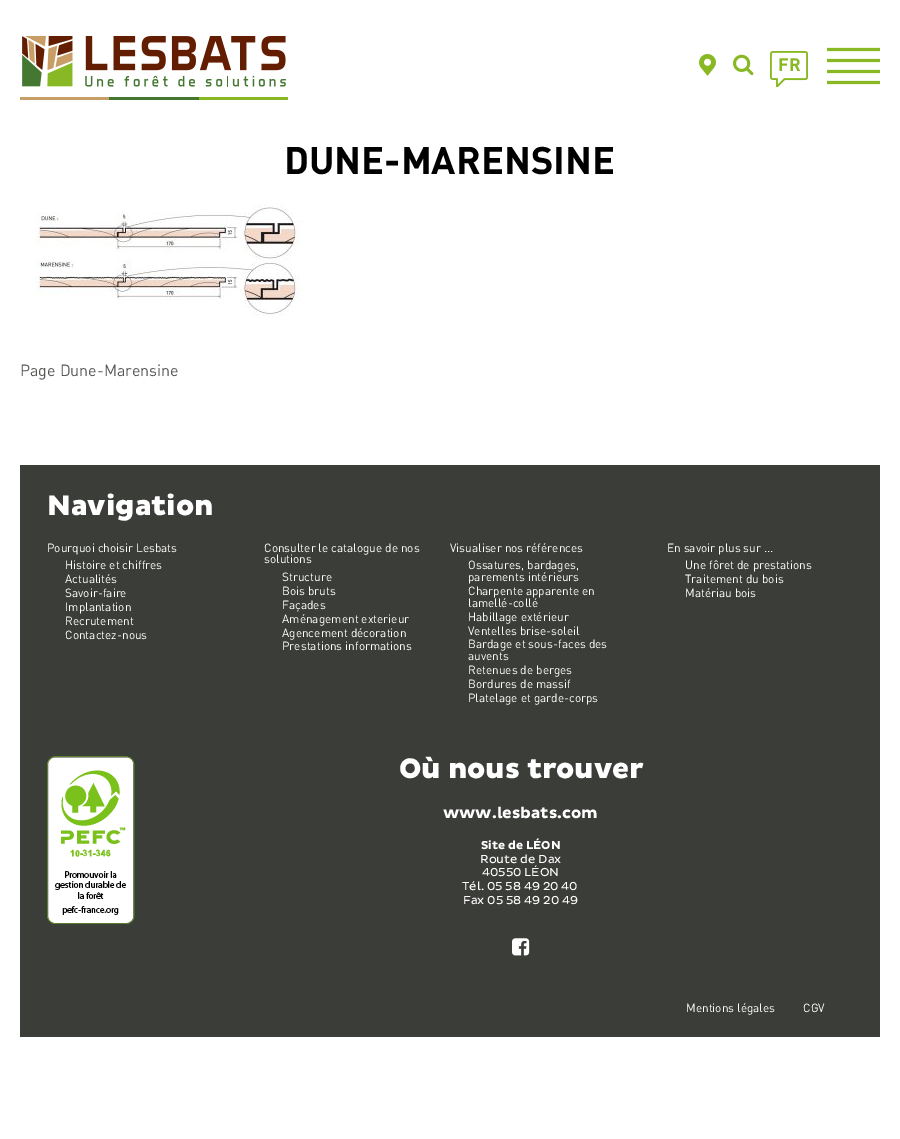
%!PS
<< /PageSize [900 1139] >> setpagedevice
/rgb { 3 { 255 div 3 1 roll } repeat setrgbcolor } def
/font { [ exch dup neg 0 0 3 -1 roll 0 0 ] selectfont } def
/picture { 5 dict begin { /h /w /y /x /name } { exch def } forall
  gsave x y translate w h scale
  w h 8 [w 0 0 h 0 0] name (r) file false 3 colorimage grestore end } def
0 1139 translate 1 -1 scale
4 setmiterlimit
255 255 255 rgb
0 0 900 1139 rectfill
(img/1.rgb) 20 36 268 64 picture
(img/2.rgb) 699 54 17 22 picture
(img/3.rgb) 733 54 21 22 picture
(img/4.rgb) 770 51 38 36 picture
[
  [827 48 53 3 137 184 37]
  [827 47 53 1 241 246 226]
  [827 51 53 1 241 246 226]
  [827 59 53 3 137 184 37]
  [827 58 53 1 241 246 226]
  [827 62 53 1 241 246 226]
  [827 70 53 3 137 184 37]
  [827 69 53 1 241 246 226]
  [827 73 53 1 241 246 226]
  [827 81 53 3 137 184 37]
  [827 80 53 1 241 246 226]
  [827 84 53 1 241 246 226]
] { aload pop rgb rectfill } forall
(img/5.rgb) 36 204 268 112 picture
59 61 56 rgb
20 465 860 572 rectfill
(img/6.rgb) 47 756 88 168 picture
(img/7.rgb) 512 938 18 18 picture
/DIN-Bold 18 font
137 184 37 rgb
778 71 moveto (FR) show
/DIN-Bold 38 font
0 0 0 rgb
284 174 moveto (DUNE-MARENSINE) show
/DIN-Regular 16 font
87 87 86 rgb
20 376 moveto (Page Dune-Marensine) show
/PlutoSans-Black 28.75 font
255 255 255 rgb
47 515 moveto (Navigation) show
/DIN-Regular 11.8 font
[
  [(Pourquoi choisir Lesbats) 47 552]
  [(Histoire et chiffres) 65 569]
  [(Actualités) 65 583]
  [(Savoir-faire) 65 597]
  [(Implantation) 65 611]
  [(Recrutement) 65 625]
  [(Contactez-nous) 65 639]
  [(Consulter le catalogue de nos) 264 552]
  [(solutions) 264 563]
  [(Structure) 282 581]
  [(Bois bruts) 282 595]
  [(Façades) 282 609]
  [(Aménagement exterieur) 282 623]
  [(Agencement décoration) 282 637]
  [(Prestations informations) 282 650]
  [(Visualiser nos références) 450 552]
  [(Ossatures, bardages,) 468 569]
  [(parements intérieurs) 468 581]
  [(Charpente apparente en) 468 595]
  [(lamellé-collé) 468 607]
  [(Habillage extérieur) 468 621]
  [(Ventelles brise-soleil) 468 635]
  [(Bardage et sous-faces des) 468 648]
  [(auvents) 468 660]
  [(Retenues de berges) 468 674]
  [(Bordures de massif) 468 688]
  [(Platelage et garde-corps) 468 702]
  [(En savoir plus sur ...) 667 552]
  [(Une fôret de prestations) 685 569]
  [(Traitement du bois) 685 583]
  [(Matériau bois) 685 597]
] { aload pop moveto show } forall
/PlutoSans-Black 28.75 font
399 778 moveto (Où nous trouver) show
/PlutoSans-Bold 16 font
443 818 moveto (www.lesbats.com) show
/PlutoSans-Bold 11.8 font
481 849 moveto (Site de LÉON) show
/PlutoSans-Regular 11.8 font
[
  [(Route de Dax) 480 863]
  [(40550 LÉON) 482 876]
  [(Tél. 05 58 49 20 40) 462 890]
  [(Fax 05 58 49 20 49) 463 904]
] { aload pop moveto show } forall
/DIN-Regular 11.8 font
686 1012 moveto (Mentions légales) show
803 1012 moveto (CGV) show
showpage
